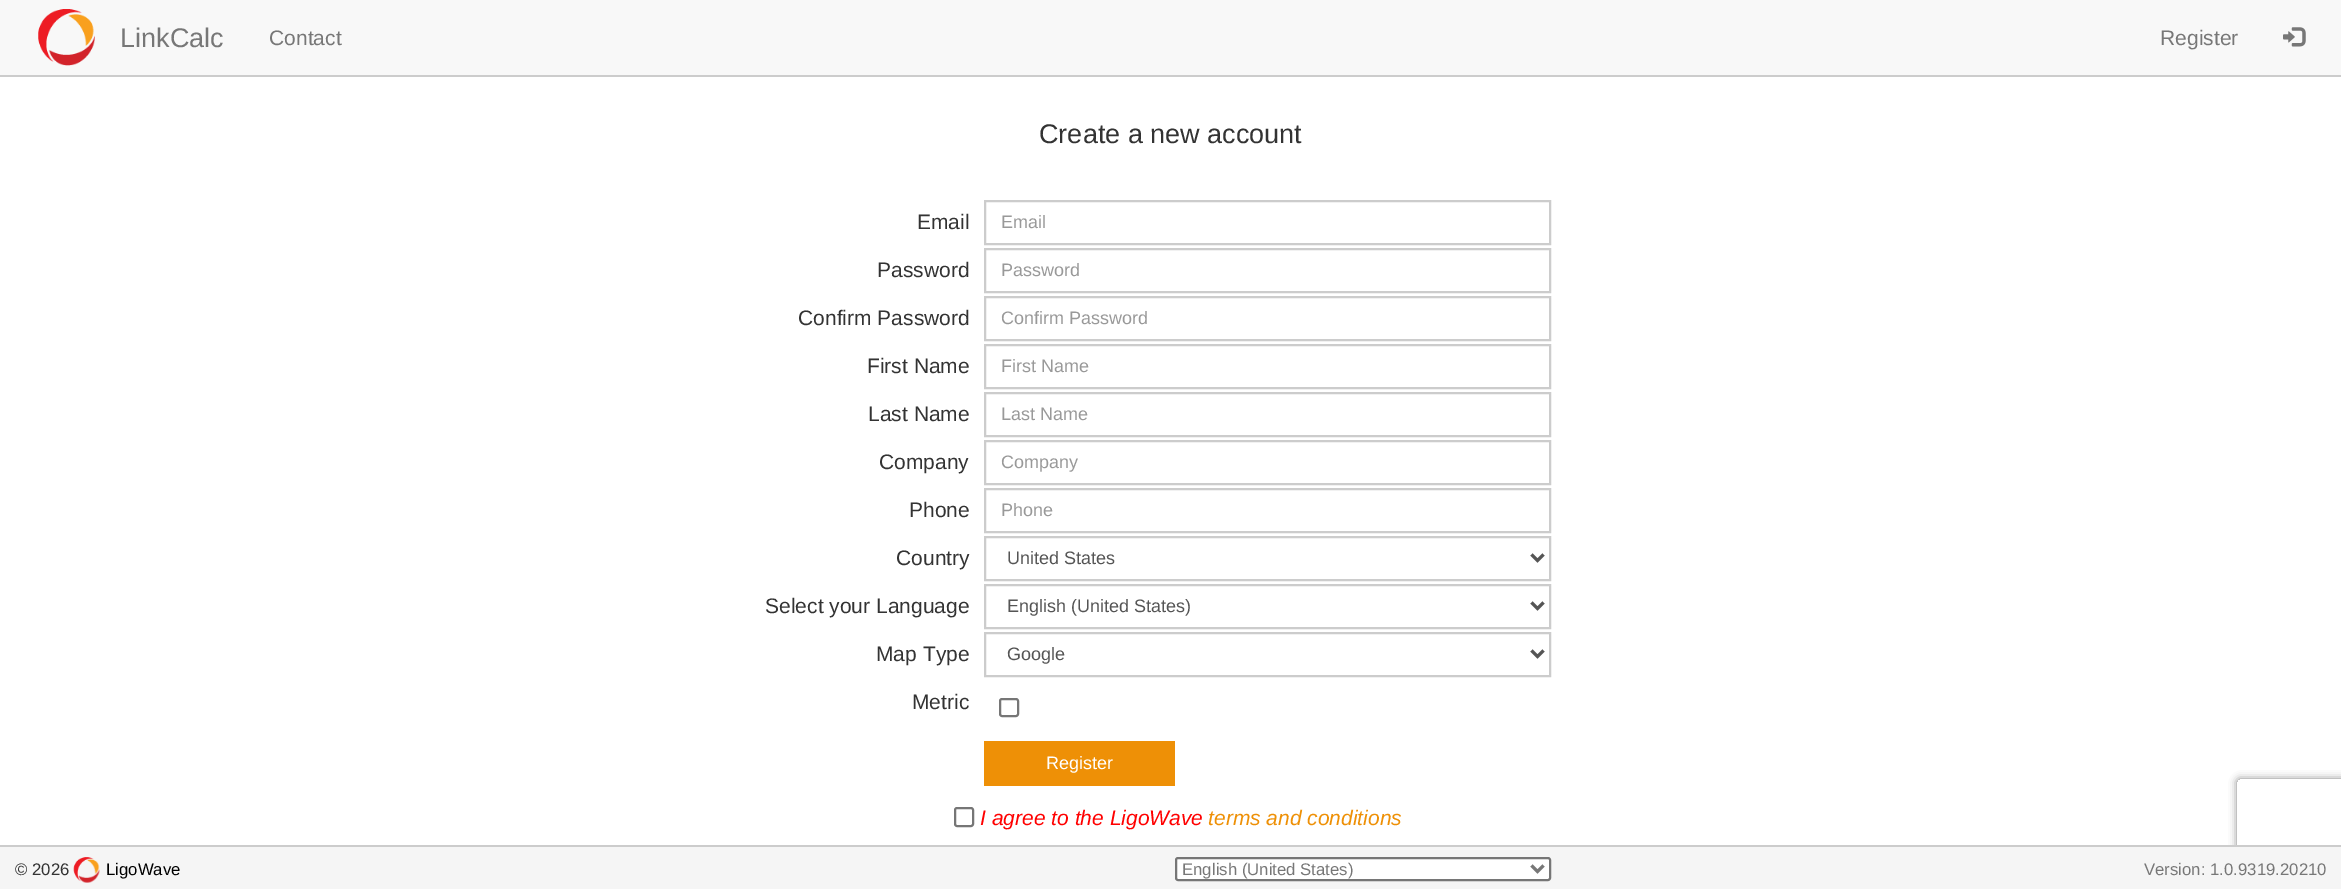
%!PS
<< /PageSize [2341 889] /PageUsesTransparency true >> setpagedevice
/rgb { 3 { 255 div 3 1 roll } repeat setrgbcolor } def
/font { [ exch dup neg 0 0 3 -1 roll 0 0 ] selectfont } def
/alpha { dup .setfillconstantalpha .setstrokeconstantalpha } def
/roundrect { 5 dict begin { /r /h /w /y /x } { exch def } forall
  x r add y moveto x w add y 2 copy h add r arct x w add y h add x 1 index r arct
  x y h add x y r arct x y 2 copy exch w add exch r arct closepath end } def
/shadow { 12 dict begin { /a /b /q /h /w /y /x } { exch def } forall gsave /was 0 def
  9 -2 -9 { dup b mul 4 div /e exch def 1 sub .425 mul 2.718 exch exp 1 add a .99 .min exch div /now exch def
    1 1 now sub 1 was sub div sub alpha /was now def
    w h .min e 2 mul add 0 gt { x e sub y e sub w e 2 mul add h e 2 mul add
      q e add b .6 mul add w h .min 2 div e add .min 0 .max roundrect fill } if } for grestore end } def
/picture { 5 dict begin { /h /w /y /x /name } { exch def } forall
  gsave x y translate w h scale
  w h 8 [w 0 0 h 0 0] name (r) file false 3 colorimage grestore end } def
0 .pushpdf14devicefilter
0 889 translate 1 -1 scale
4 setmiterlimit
255 255 255 rgb
0 0 2341 889 rectfill
248 248 248 rgb
0 0 2341 75 rectfill
204 204 204 rgb
0 75 2341 2 rectfill
(img/1.rgb) 38 9 57 57 picture
(img/2.rgb) 2283 27 23 20 picture
2 setlinewidth
985 201 565 43 rectstroke
985 249 565 43 rectstroke
985 297 565 43 rectstroke
985 345 565 43 rectstroke
985 393 565 43 rectstroke
985 441 565 43 rectstroke
985 489 565 43 rectstroke
985 537 565 43 rectstroke
85 85 85 rgb
3 setlinewidth
1531.5 554.5 moveto 1537.5 560.5 lineto 1543.5 554.5 lineto stroke
204 204 204 rgb
2 setlinewidth
985 585 565 43 rectstroke
85 85 85 rgb
3 setlinewidth
1531.5 602.5 moveto 1537.5 608.5 lineto 1543.5 602.5 lineto stroke
204 204 204 rgb
2 setlinewidth
985 633 565 43 rectstroke
85 85 85 rgb
3 setlinewidth
1531.5 650.5 moveto 1537.5 656.5 lineto 1543.5 650.5 lineto stroke
118 118 118 rgb
2 setlinewidth
1000 699 18 17 2 roundrect stroke
238 144 6 rgb
984 741 191 45 rectfill
118 118 118 rgb
955 808 18 18 2 roundrect stroke
gsave
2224 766 moveto 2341 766 lineto 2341 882 lineto 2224 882 lineto closepath 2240 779 moveto 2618 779 lineto 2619.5 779 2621 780.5 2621 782 curveto 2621 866 lineto 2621 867.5 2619.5 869 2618 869 curveto 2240 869 lineto 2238.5 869 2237 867.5 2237 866 curveto 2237 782 lineto 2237 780.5 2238.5 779 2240 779 curveto closepath eoclip newpath
128 128 128 rgb
2237 779 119 90 3 4 1 shadow
grestore
245 245 245 rgb
0 847 2341 42 rectfill
204 204 204 rgb
0 845 2341 2 rectfill
(img/3.rgb) 73 857 27 26 picture
255 255 255 rgb
1176 858 374 22 2 roundrect gsave fill grestore
118 118 118 rgb
stroke
119 119 119 rgb
3 setlinewidth
1531.5 865.5 moveto 1537.5 871.5 lineto 1543.5 865.5 lineto stroke
/LiberationSans-Regular 27 font
120 47 moveto (LinkCalc) show
/LiberationSans-Regular 21 font
269 45 moveto (Contact) show
2160 45 moveto (Register) show
/LiberationSans-Regular 27 font
51 51 51 rgb
1039 143 moveto (Create a new account) show
/LiberationSans-Regular 21 font
917 229 moveto (Email) show
/LiberationSans-Regular 18 font
153 153 153 rgb
1001 228 moveto (Email) show
/LiberationSans-Regular 21 font
51 51 51 rgb
877 277 moveto (Password) show
/LiberationSans-Regular 18 font
153 153 153 rgb
1001 276 moveto (Password) show
/LiberationSans-Regular 21 font
51 51 51 rgb
798 325 moveto (Confirm Password) show
/LiberationSans-Regular 18 font
153 153 153 rgb
1001 324 moveto (Confirm Password) show
/LiberationSans-Regular 21 font
51 51 51 rgb
867 373 moveto (First Name) show
/LiberationSans-Regular 18 font
153 153 153 rgb
1001 372 moveto (First Name) show
/LiberationSans-Regular 21 font
51 51 51 rgb
868 421 moveto (Last Name) show
/LiberationSans-Regular 18 font
153 153 153 rgb
1001 420 moveto (Last Name) show
/LiberationSans-Regular 21 font
51 51 51 rgb
879 469 moveto (Company) show
/LiberationSans-Regular 18 font
153 153 153 rgb
1001 468 moveto (Company) show
/LiberationSans-Regular 21 font
51 51 51 rgb
909 517 moveto (Phone) show
/LiberationSans-Regular 18 font
153 153 153 rgb
1001 516 moveto (Phone) show
/LiberationSans-Regular 21 font
51 51 51 rgb
896 565 moveto (Country) show
/LiberationSans-Regular 18 font
85 85 85 rgb
1007 564 moveto (United States) show
/LiberationSans-Regular 21 font
51 51 51 rgb
765 613 moveto (Select your Language) show
/LiberationSans-Regular 18 font
85 85 85 rgb
1007 612 moveto (English \(United States\)) show
/LiberationSans-Regular 21 font
51 51 51 rgb
876 661 moveto (Map Type) show
/LiberationSans-Regular 18 font
85 85 85 rgb
1007 660 moveto (Google) show
/LiberationSans-Regular 21 font
51 51 51 rgb
912 709 moveto (Metric) show
/LiberationSans-Regular 18 font
255 255 255 rgb
1046 769 moveto (Register) show
/LiberationSans-Italic 21 font
255 0 0 rgb
980 825 moveto (I agree to the LigoWave) show
238 144 6 rgb
1208 825 moveto (terms and conditions) show
/LiberationSans-Regular 16.75 font
51 51 51 rgb
15 875 moveto (© 2026) show
0 0 0 rgb
106 875 moveto (LigoWave) show
119 119 119 rgb
1182 875 moveto (English \(United States\)) show
2144 875 moveto (Version: 1.0.9319.20210) show
.poppdf14devicefilter showpage
